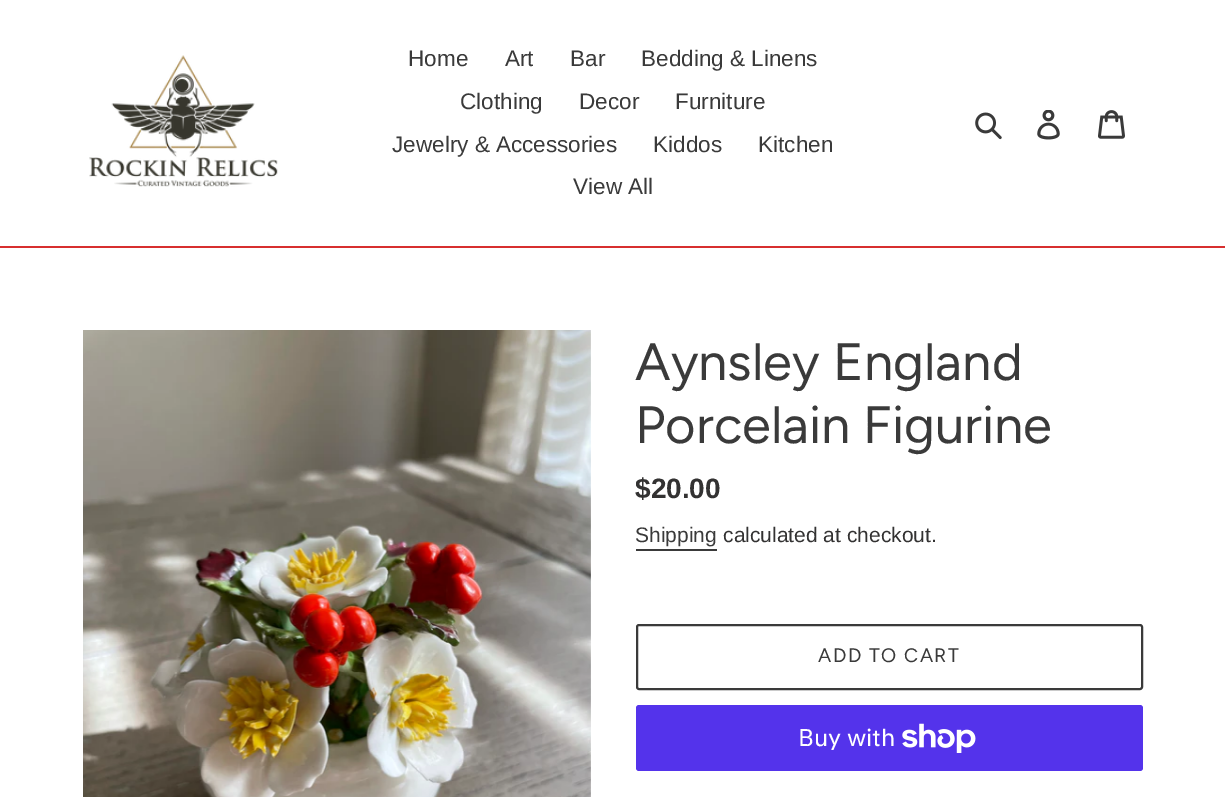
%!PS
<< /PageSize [1225 797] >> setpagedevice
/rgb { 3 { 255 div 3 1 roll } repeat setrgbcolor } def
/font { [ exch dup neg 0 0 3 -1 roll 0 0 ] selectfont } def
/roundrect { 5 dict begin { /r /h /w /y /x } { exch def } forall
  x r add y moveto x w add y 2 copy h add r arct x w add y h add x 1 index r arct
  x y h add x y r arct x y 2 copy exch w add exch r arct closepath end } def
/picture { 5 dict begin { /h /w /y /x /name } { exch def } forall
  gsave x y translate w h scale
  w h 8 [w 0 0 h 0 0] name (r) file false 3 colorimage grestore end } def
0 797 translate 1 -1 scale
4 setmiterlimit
255 255 255 rgb
0 0 1225 797 rectfill
215 47 47 rgb
0 246 1225 2 rectfill
(img/1.rgb) 89 55 189 132 picture
(img/2.rgb) 975 112 27 28 picture
(img/3.rgb) 1037 110 23 30 picture
(img/4.rgb) 1098 110 27 29 picture
(img/5.rgb) 83 330 508 467 picture
58 58 58 rgb
636 549 81 2 rectfill
2 setlinewidth
637 625 505 64 2 roundrect stroke
84 51 235 rgb
636 705 507 66 3 roundrect fill
(img/6.rgb) 902 723 74 30 picture
/LiberationSans-Regular 22.5 font
58 58 58 rgb
[
  [(Home) 408 66]
  [(Art) 505 66]
  [(Bar) 570 66]
  [(Bedding & Linens) 641 66]
  [(Clothing) 460 109]
  [(Decor) 579 109]
  [(Furniture) 675 109]
  [(Jewelry & Accessories) 392 152]
  [(Kiddos) 653 152]
  [(Kitchen) 758 152]
  [(View All) 573 194]
] { aload pop moveto show } forall
/Figtree-Regular 52.5 font
635 380 moveto (Aynsley England) show
635 443 moveto (Porcelain Figurine) show
/LiberationSans-Bold 28 font
51 50 50 rgb
635 498 moveto ($20.00) show
/LiberationSans-Regular 21 font
58 58 58 rgb
635 542 moveto (Shipping) show
51 50 50 rgb
723 542 moveto (calculated at checkout.) show
/Figtree-Regular 19.5 font
58 58 58 rgb
818 662 moveto 1.5 0 (ADD TO CART) ashow
/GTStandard-Regular 24 font
255 255 255 rgb
798 746 moveto (Buy with) show
showpage
